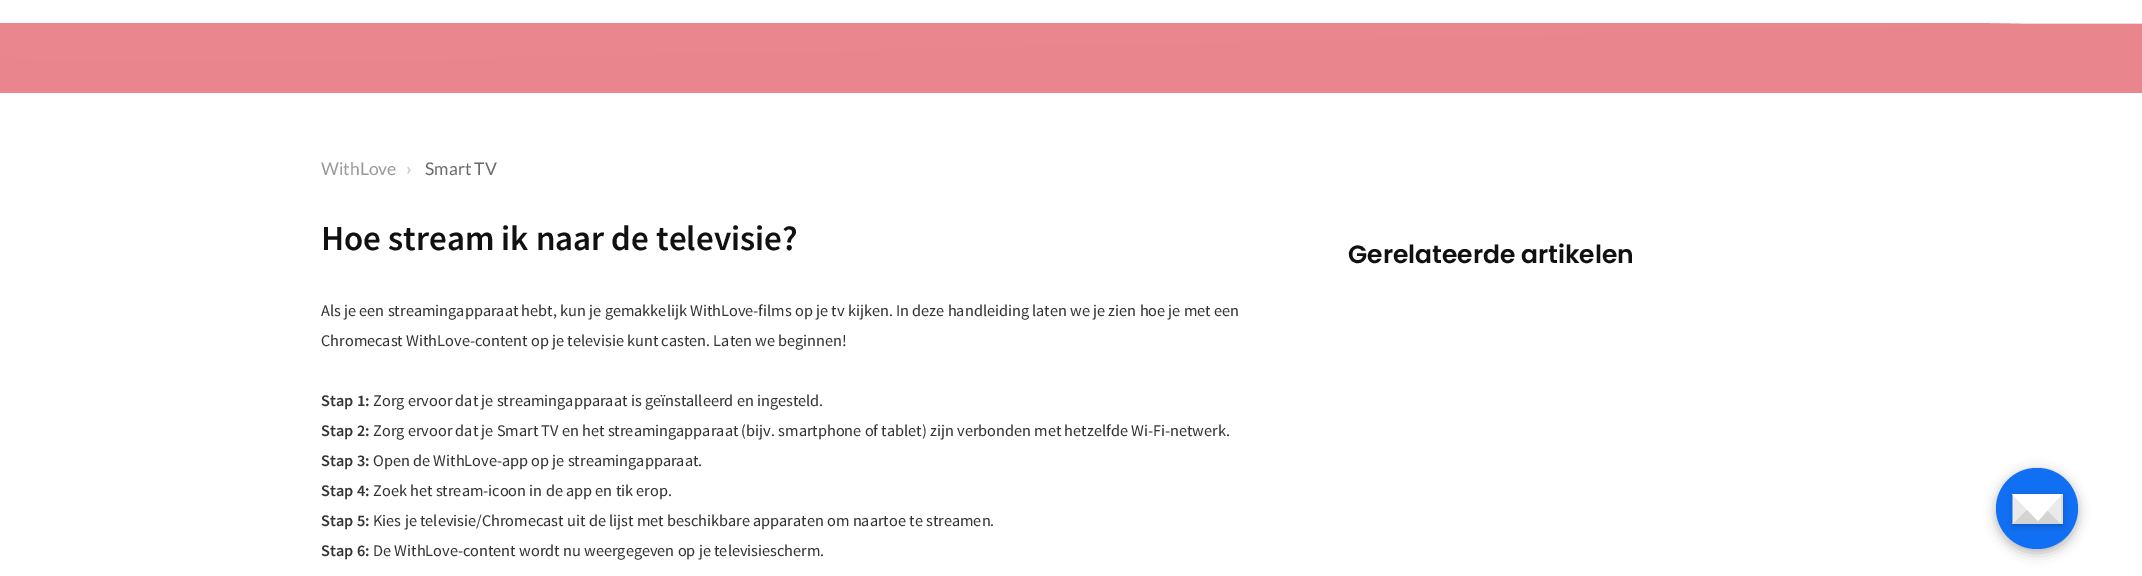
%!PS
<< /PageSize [2142 576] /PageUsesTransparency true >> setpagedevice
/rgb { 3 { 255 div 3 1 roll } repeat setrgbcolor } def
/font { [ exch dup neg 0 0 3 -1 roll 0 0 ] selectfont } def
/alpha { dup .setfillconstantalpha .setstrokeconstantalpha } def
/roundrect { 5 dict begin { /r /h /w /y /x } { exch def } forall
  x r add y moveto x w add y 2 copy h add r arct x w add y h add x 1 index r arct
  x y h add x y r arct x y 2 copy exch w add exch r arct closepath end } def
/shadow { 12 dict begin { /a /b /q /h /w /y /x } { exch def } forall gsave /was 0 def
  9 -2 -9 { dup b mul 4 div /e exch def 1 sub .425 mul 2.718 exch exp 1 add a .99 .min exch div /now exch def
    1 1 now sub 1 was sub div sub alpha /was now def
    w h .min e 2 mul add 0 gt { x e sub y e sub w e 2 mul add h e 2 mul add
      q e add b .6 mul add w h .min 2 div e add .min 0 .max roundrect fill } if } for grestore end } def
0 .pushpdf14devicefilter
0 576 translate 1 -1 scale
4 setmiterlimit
255 255 255 rgb
0 0 2142 576 rectfill
233 133 141 rgb
0 24 2142 69 rectfill
gsave
0 23 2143 58 rectclip
234 134 142 rgb
192 62 moveto 416 62 2062 22 2062 22 curveto -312 22 lineto -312 22 -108 62 192 62 curveto closepath fill
0.2 alpha
1678 81 moveto 1940 81 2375 -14 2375 -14 curveto 0 -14 lineto 0 -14 1121 81 1678 81 curveto closepath fill
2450 81 moveto 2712 81 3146 -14 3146 -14 curveto 771 -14 lineto 771 -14 1892 81 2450 81 curveto closepath fill
grestore
0 0 0 rgb
1996 471 82 82 41 6 0.3 shadow
17 111 243 rgb
1996 468 82 81 40.5 roundrect fill
0 0 0 rgb
2013 496 50 30 0 3 0.2 shadow
221 221 221 rgb
2013 494 50 30 rectfill
212 212 212 rgb
2062 524 moveto 2012 524 lineto 2038 496 lineto closepath fill
234 234 234 rgb
2012.5 524 moveto 2012.5 494 lineto 2027.5 509 lineto closepath 2061 494 moveto 2061 524 lineto 2046 509 lineto closepath fill
255 255 255 rgb
2012 494 moveto 2062 494 lineto 2038 521 lineto closepath fill
/Lato-Regular 17.5 font
153 153 153 rgb
321 175 moveto (WithLove) show
/Lato-Bold 17.5 font
204 204 204 rgb
406 175 moveto (›) show
/Lato-Regular 17.5 font
105 105 105 rgb
425 175 moveto (Smart TV) show
/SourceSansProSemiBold-SemiBold 35 font
17 17 17 rgb
321 250 moveto (Hoe stream ik naar de televisie?) show
/SourceSansPro-Regular 16.25 font
51 51 51 rgb
321 316 moveto (Als je een streamingapparaat hebt, kun je gemakkelijk WithLove-films op je tv kijken. In deze handleiding laten we je zien hoe je met een) show
321 346 moveto (Chromecast WithLove-content op je televisie kunt casten. Laten we beginnen!) show
/SourceSansProSemiBold-SemiBold 16.25 font
321 406 moveto (Stap 1:) show
/SourceSansPro-Regular 16.25 font
373 406 moveto (Zorg ervoor dat je streamingapparaat is geïnstalleerd en ingesteld.) show
/SourceSansProSemiBold-SemiBold 16.25 font
321 436 moveto (Stap 2:) show
/SourceSansPro-Regular 16.25 font
373 436 moveto (Zorg ervoor dat je Smart TV en het streamingapparaat \(bijv. smartphone of tablet\) zijn verbonden met hetzelfde Wi-Fi-netwerk.) show
/SourceSansProSemiBold-SemiBold 16.25 font
321 466 moveto (Stap 3:) show
/SourceSansPro-Regular 16.25 font
373 466 moveto (Open de WithLove-app op je streamingapparaat.) show
/SourceSansProSemiBold-SemiBold 16.25 font
321 496 moveto (Stap 4:) show
/SourceSansPro-Regular 16.25 font
373 496 moveto (Zoek het stream-icoon in de app en tik erop.) show
/SourceSansProSemiBold-SemiBold 16.25 font
321 526 moveto (Stap 5:) show
/SourceSansPro-Regular 16.25 font
373 526 moveto (Kies je televisie/Chromecast uit de lijst met beschikbare apparaten om naartoe te streamen.) show
/SourceSansProSemiBold-SemiBold 16.25 font
321 556 moveto (Stap 6:) show
/SourceSansPro-Regular 16.25 font
373 556 moveto (De WithLove-content wordt nu weergegeven op je televisiescherm.) show
/Poppins-SemiBold 25 font
17 17 17 rgb
1348 263 moveto (Gerelateerde artikelen) show
.poppdf14devicefilter showpage
